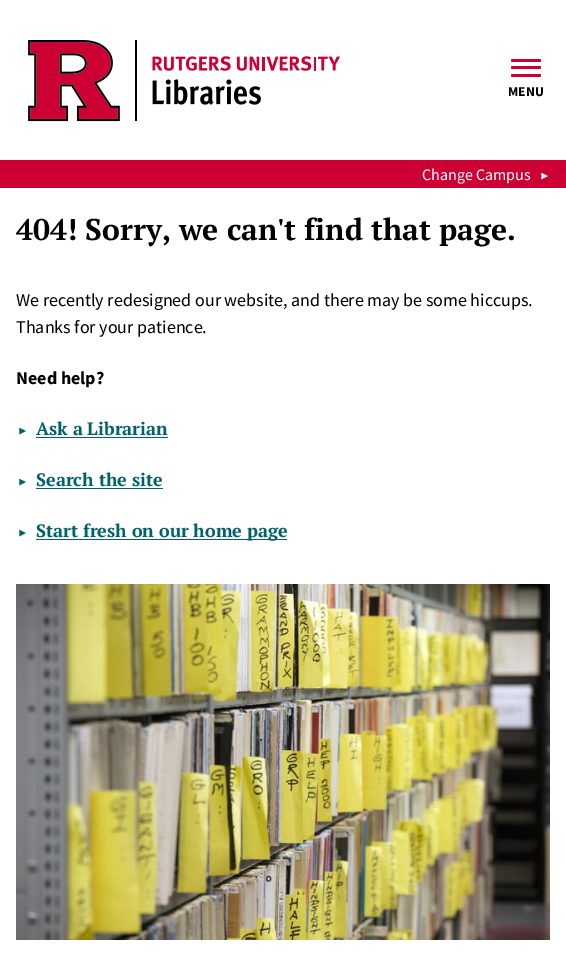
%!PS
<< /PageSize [566 968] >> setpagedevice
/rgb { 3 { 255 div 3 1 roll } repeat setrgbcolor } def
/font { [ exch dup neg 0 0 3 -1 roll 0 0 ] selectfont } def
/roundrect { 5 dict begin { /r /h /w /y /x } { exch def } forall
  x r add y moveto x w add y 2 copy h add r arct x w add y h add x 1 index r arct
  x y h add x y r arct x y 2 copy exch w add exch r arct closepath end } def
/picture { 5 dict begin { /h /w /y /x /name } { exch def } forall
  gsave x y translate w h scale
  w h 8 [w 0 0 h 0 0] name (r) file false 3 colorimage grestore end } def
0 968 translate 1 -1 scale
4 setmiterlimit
255 255 255 rgb
0 0 566 968 rectfill
(img/1.rgb) 28 40 312 82 picture
204 0 51 rgb
511 66 30 3 1.5 roundrect fill
511 59 30 3 1.5 roundrect fill
511 74 30 3 1.5 roundrect fill
[
  [0 160 566 28 204 0 51]
  [36 437 132 1 0 98 109]
  [36 488 127 1 0 98 109]
  [36 539 251 1 0 98 109]
] { aload pop rgb rectfill } forall
(img/2.rgb) 16 584 534 356 picture
/SourceSansPro-Bold 13.5 font
0 0 0 rgb
508 96 moveto (MENU) show
/SourceSansPro-Regular 16 font
255 255 255 rgb
422 180 moveto (Change Campus) show
/LiberationSans-Regular 12 font
gsave 548 182 translate -90 rotate 0 0 moveto (▼) show grestore
/PTSerif-Bold 30 font
0 0 0 rgb
16 240 moveto (404! Sorry, we can't find that page.) show
/SourceSansPro-Regular 18 font
16 306 moveto (We recently redesigned our website, and there may be some hiccups.) show
16 333 moveto (Thanks for your patience.) show
/SourceSansPro-Bold 18 font
16 384 moveto (Need help?) show
/LiberationSerif-Bold 12 font
0 98 109 rgb
gsave 26 437 translate -90 rotate 0 0 moveto (▼) show grestore
/PTSerif-Bold 18 font
36 435 moveto (Ask a Librarian) show
/LiberationSerif-Bold 12 font
gsave 26 488 translate -90 rotate 0 0 moveto (▼) show grestore
/PTSerif-Bold 18 font
36 486 moveto (Search the site) show
/LiberationSerif-Bold 12 font
gsave 26 539 translate -90 rotate 0 0 moveto (▼) show grestore
/PTSerif-Bold 18 font
36 537 moveto (Start fresh on our home page) show
showpage
